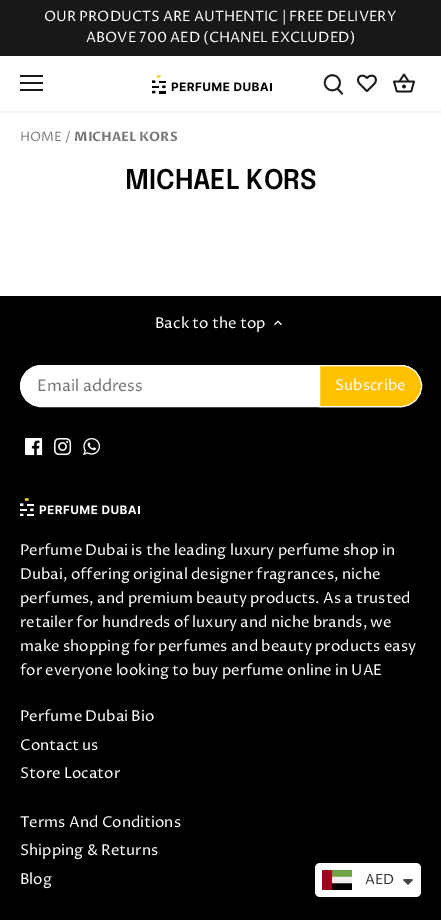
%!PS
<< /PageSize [441 920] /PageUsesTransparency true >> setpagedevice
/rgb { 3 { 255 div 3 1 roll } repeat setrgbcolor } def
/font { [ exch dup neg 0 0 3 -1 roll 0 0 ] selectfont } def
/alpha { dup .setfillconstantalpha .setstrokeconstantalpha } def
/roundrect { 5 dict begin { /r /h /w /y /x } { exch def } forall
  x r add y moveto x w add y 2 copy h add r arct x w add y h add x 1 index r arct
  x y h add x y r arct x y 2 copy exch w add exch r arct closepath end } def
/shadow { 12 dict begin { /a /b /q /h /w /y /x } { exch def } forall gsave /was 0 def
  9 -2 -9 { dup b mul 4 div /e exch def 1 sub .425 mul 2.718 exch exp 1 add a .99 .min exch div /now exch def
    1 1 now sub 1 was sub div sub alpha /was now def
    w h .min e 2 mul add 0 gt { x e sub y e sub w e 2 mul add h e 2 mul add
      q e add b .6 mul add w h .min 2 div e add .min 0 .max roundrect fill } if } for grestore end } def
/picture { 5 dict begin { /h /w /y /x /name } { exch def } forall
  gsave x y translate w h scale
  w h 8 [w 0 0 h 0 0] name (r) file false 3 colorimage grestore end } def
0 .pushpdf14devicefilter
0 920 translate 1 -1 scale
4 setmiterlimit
255 255 255 rgb
0 0 441 920 rectfill
gsave
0 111 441 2 rectclip
0 0 0 rgb
-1 55 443 57 0 1.5 0.08 shadow
grestore
[
  [0 0 441 56 25 24 23]
  [20 75 23 2 25 24 23]
  [20 82 23 2 25 24 23]
  [20 89 23 2 25 24 23]
] { aload pop rgb rectfill } forall
(img/1.rgb) 152 75 120 19 picture
(img/2.rgb) 323 74 21 21 picture
(img/3.rgb) 357 74 20 18 picture
(img/4.rgb) 393 73 22 20 picture
0 0 0 rgb
0 296 441 624 rectfill
(img/5.rgb) 274 320 8 6 picture
255 255 255 rgb
20.5 365.5 400 41 20.5 roundrect gsave fill grestore
stroke
255 193 0 rgb
319.5 365.5 moveto 401 365.5 lineto 412.5 365.5 421.5 374.5 421.5 386 curveto 421.5 397.5 412.5 406.5 401 406.5 curveto 319.5 406.5 lineto closepath gsave fill grestore
255 255 255 rgb
stroke
(img/6.rgb) 25 438 18 18 picture
(img/7.rgb) 54 438 18 18 picture
(img/8.rgb) 83 438 18 17 picture
(img/9.rgb) 20 498 120 18 picture
315 863 106 34 5 roundrect fill
(img/10.rgb) 322 870 30 20 picture
71 73 66 rgb
405 879 moveto 404 879 403.5 879.5 403 880 curveto 408 885 lineto 413 880 lineto 412 879 lineto closepath fill
/ProzaLibre-Regular 14.25 font
255 255 255 rgb
44 21 moveto (OUR PRODUCTS ARE AUTHENTIC | FREE DELIVERY) show
86 42 moveto (ABOVE 700 AED \(CHANEL EXCLUDED\)) show
/ProzaLibre-Regular 13 font
120 122 124 rgb
20 141 moveto (HOME) show
65 141 moveto (/) show
/ProzaLibre-Bold 13 font
74 141 moveto (MICHAEL KORS) show
/Epilogue-SemiBold 27 font
0 0 0 rgb
125 189 moveto (MICHAEL KORS) show
/ProzaLibre-Regular 15 font
255 255 255 rgb
155 328 moveto (Back to the top) show
/ProzaLibre-Regular 16 font
117 117 117 rgb
37 391 moveto (Email address) show
/ProzaLibre-Regular 15 font
255 255 255 rgb
[
  [(Subscribe) 335 390]
  [(Perfume Dubai is the leading luxury perfume shop in) 20 555]
  [(Dubai, offering original designer fragrances, niche) 20 579]
  [(perfumes, and premium beauty products. As a trusted) 20 603]
  [(retailer for hundreds of luxury and niche brands, we) 20 627]
  [(make shopping for perfumes and beauty products easy) 20 651]
  [(for everyone looking to buy perfume online in UAE) 20 675]
  [(Perfume Dubai Bio) 20 721]
  [(Contact us) 20 750]
  [(Store Locator) 20 778]
  [(Terms And Conditions) 20 827]
  [(Shipping & Returns) 20 855]
  [(Blog) 20 884]
] { aload pop moveto show } forall
/ProzaLibre-Regular 14 font
51 51 51 rgb
365 884 moveto (AED) show
.poppdf14devicefilter showpage
